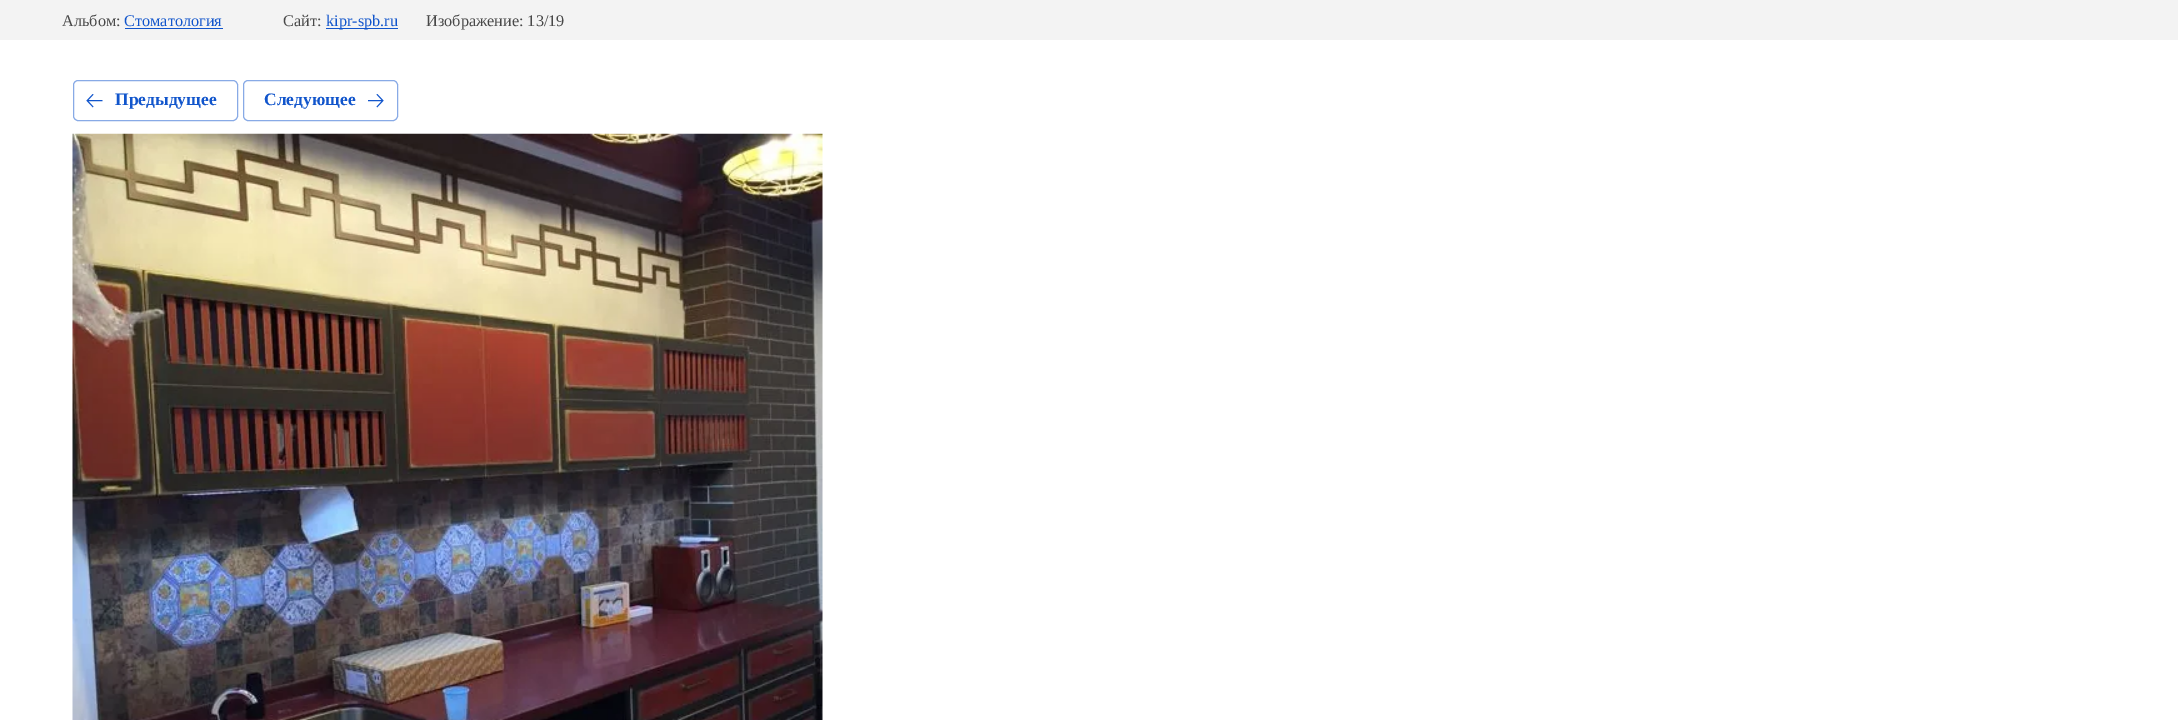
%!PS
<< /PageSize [2178 720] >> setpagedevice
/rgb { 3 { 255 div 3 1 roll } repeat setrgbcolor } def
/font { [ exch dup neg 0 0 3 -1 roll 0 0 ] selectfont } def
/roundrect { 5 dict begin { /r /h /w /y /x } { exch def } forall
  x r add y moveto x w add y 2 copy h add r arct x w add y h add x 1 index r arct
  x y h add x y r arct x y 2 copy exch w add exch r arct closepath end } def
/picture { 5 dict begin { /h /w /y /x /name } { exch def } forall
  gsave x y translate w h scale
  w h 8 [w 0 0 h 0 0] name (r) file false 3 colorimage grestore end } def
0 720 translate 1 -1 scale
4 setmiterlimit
255 255 255 rgb
0 0 2178 720 rectfill
[
  [0 0 2178 40 243 243 243]
  [125 28 98 1 17 85 204]
  [326 28 72 1 17 85 204]
] { aload pop rgb rectfill } forall
136 170 230 rgb
73.5 80.5 164 40 4.5 roundrect stroke
(img/1.rgb) 86 94 17 14 picture
243.5 80.5 154 40 4.5 roundrect stroke
(img/2.rgb) 368 94 16 14 picture
(img/3.rgb) 72 133 751 587 picture
/LiberationSerif-Regular 16.25 font
72 72 72 rgb
62 26 moveto (Альбом:) show
17 85 204 rgb
124 26 moveto (Стоматология) show
72 72 72 rgb
283 26 moveto (Сайт:) show
17 85 204 rgb
326 26 moveto (kipr-spb.ru) show
72 72 72 rgb
426 26 moveto (Изображение: 13/19) show
/LiberationSerif-Bold 17.5 font
17 85 204 rgb
115 105 moveto (Предыдущее) show
264 105 moveto (Следующее) show
showpage
